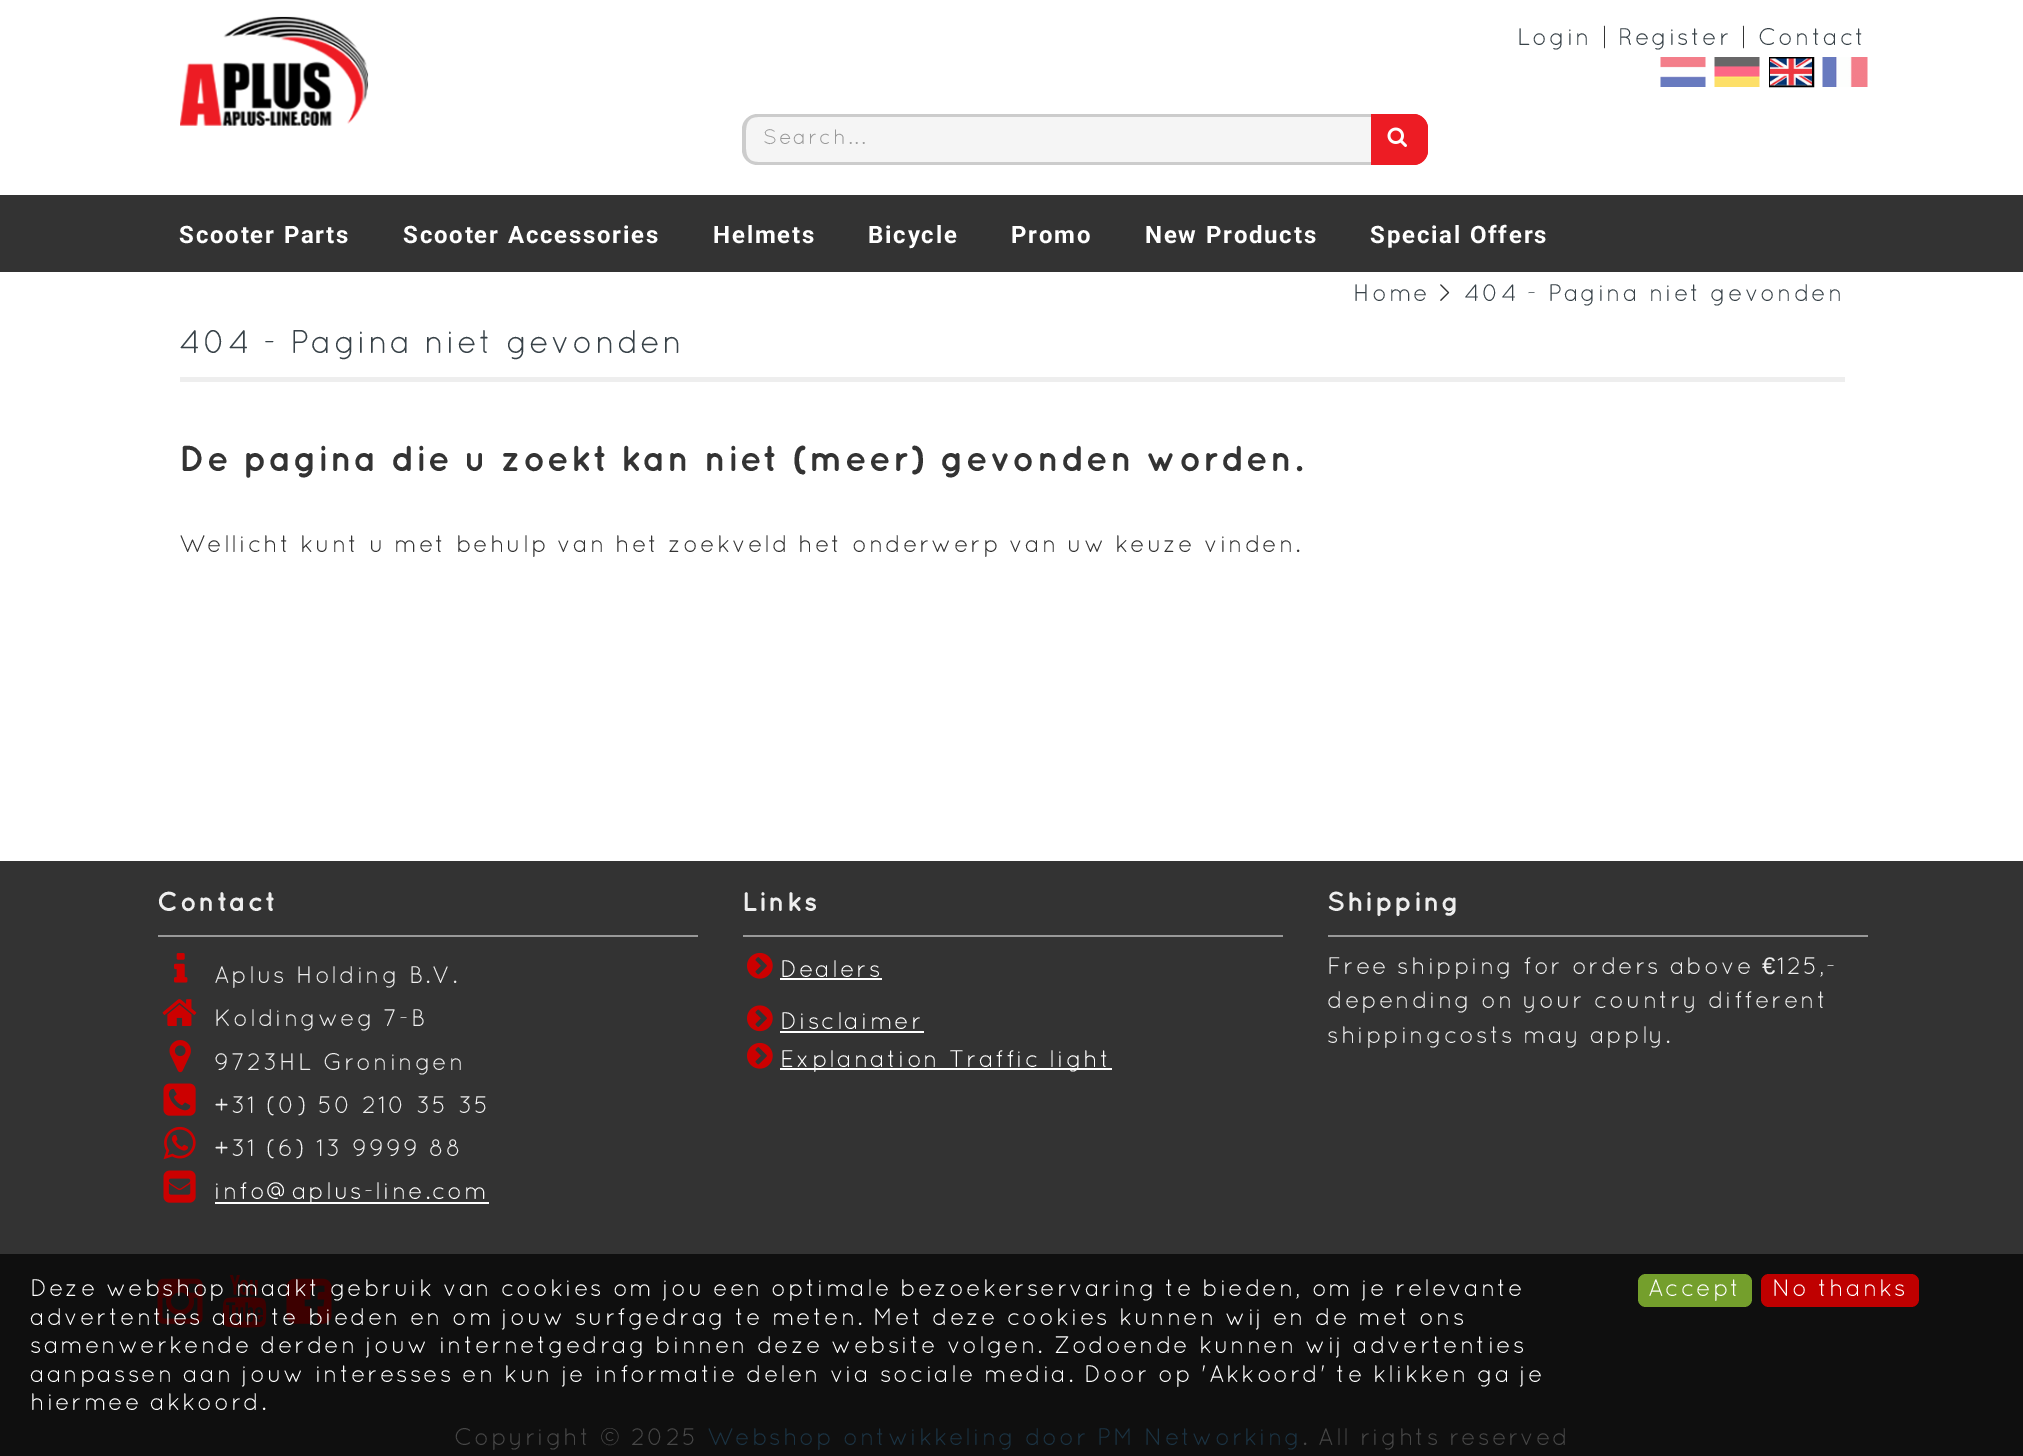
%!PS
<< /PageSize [2023 1456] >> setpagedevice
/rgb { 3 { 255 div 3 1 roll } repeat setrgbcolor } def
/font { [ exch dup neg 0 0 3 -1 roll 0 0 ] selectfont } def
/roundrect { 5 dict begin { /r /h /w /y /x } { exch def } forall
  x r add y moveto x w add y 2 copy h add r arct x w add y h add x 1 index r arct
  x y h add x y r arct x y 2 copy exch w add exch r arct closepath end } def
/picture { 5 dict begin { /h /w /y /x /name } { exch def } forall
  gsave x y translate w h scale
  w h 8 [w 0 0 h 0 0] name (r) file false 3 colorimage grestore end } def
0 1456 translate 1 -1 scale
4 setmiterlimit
255 255 255 rgb
0 0 2023 1456 rectfill
(img/1.rgb) 180 16 189 110 picture
(img/2.rgb) 1660 57 46 30 picture
(img/3.rgb) 1714 57 46 30 picture
0 0 0 rgb
2 setlinewidth
1770 58 43 28 rectstroke
(img/4.rgb) 1822 57 46 30 picture
(img/5.rgb) 1770 58 42 28 picture
237 28 36 rgb
1370 114 moveto 1413 114 lineto 1421.5 114 1428 120.5 1428 129 curveto 1428 150 lineto 1428 158.5 1421.5 165 1413 165 curveto 1370 165 lineto closepath fill
1370 114 moveto 1413 114 lineto 1421 114 1428 121 1428 129 curveto 1428 150 lineto 1428 158 1421 165 1413 165 curveto 1370 165 lineto closepath 1370 116 moveto 1413 116 lineto 1420 116 1426 122 1426 129 curveto 1426 150 lineto 1426 157 1420 164 1413 164 curveto 1370 164 lineto closepath eofill
245 245 245 rgb
758 114 moveto 1371 114 lineto 1371 165 lineto 758 165 lineto 749.5 165 743 158.5 743 150 curveto 743 129 lineto 743 120.5 749.5 114 758 114 curveto closepath fill
204 204 204 rgb
758 114 moveto 1371 114 lineto 1371 165 lineto 758 165 lineto 749 165 742 158 742 150 curveto 742 129 lineto 742 121 749 114 758 114 curveto closepath 758 117 moveto 1371 117 lineto 1371 162 lineto 758 162 lineto 744 162 746 149 746 140 curveto 746 130 744 117 758 117 curveto closepath eofill
(img/6.rgb) 1387 127 20 20 picture
[
  [0 195 2023 77 51 51 51]
  [180 377 1665 5 238 238 238]
  [0 861 2023 393 51 51 51]
  [0 1254 2023 202 15 15 15]
  [158 935 540 2 153 153 153]
] { aload pop rgb rectfill } forall
(img/7.rgb) 174 953 14 30 picture
(img/8.rgb) 162 999 35 27 picture
(img/9.rgb) 169 1040 22 33 picture
(img/10.rgb) 163 1083 33 33 picture
(img/11.rgb) 163 1126 33 34 picture
(img/12.rgb) 163 1170 33 33 picture
255 255 255 rgb
215 1202 274 2 rectfill
(img/13.rgb) 157 1278 46 46 picture
(img/14.rgb) 222 1275 45 53 picture
(img/15.rgb) 286 1278 46 46 picture
153 153 153 rgb
743 935 540 2 rectfill
(img/16.rgb) 747 952 26 27 picture
255 255 255 rgb
780 978 102 2 rectfill
(img/17.rgb) 747 1005 26 27 picture
780 1031 144 2 rectfill
(img/16.rgb) 747 1042 26 27 picture
780 1068 332 2 rectfill
153 153 153 rgb
1328 935 540 2 rectfill
116 159 44 rgb
1638 1274 114 33 8 roundrect fill
191 0 0 rgb
1761 1274 158 33 8 roundrect fill
/Quicksand-Regular 24 font
56 66 72 rgb
1517 45 moveto 1.8 0 (Login) ashow
51 51 51 rgb
1601 45 moveto 1.8 0 (|) ashow
56 66 72 rgb
1618 45 moveto 1.8 0 (Register) ashow
51 51 51 rgb
1740 45 moveto 1.8 0 (|) ashow
56 66 72 rgb
1758 45 moveto 1.8 0 (Contact) ashow
/Quicksand-Regular 21 font
153 153 153 rgb
763 144 moveto 1.8 0 (Search...) ashow
/Roboto-Bold 24 font
255 255 255 rgb
179 243 moveto 1.8 0 (Scooter Parts) ashow
403 243 moveto 1.8 0 (Scooter Accessories) ashow
713 243 moveto 1.8 0 (Helmets) ashow
868 243 moveto 1.8 0 (Bicycle) ashow
1011 243 moveto 1.8 0 (Promo) ashow
1145 243 moveto 1.8 0 (New Products) ashow
1370 243 moveto 1.8 0 (Special Offers) ashow
/Quicksand-Regular 24 font
56 66 72 rgb
1353 301 moveto 1.8 0 (Home) ashow
51 51 51 rgb
1438 301 moveto 1.8 0 (>) ashow
56 66 72 rgb
1464 301 moveto 1.8 0 (404 - Pagina niet gevonden) ashow
/Quicksand-Regular 33 font
179 353 moveto 1.8 0 (404 - Pagina niet gevonden) ashow
/Quicksand-Bold 36 font
51 51 51 rgb
179 471 moveto 1.8 0 (De pagina die u zoekt kan niet \(meer\) gevonden worden.) ashow
/Quicksand-Regular 24 font
179 552 moveto 1.8 0 (Wellicht kunt u met behulp van het zoekveld het onderwerp van uw keuze vinden.) ashow
/Quicksand-Bold 27 font
238 238 238 rgb
157 911 moveto 1.8 0 (Contact) ashow
/Quicksand-Regular 24 font
214 983 moveto 1.8 0 (Aplus Holding B.V.) ashow
214 1026 moveto 1.8 0 (Koldingweg 7-B) ashow
214 1070 moveto 1.8 0 (9723HL Groningen) ashow
214 1113 moveto 1.8 0 (+31 \(0\) 50 210 35 35) ashow
214 1156 moveto 1.8 0 (+31 \(6\) 13 9999 88) ashow
255 255 255 rgb
214 1199 moveto 1.8 0 (info@aplus-line.com) ashow
/Quicksand-Bold 27 font
238 238 238 rgb
742 911 moveto 1.8 0 (Links) ashow
/Quicksand-Regular 24 font
255 255 255 rgb
780 977 moveto 1.8 0 (Dealers) ashow
780 1029 moveto 1.8 0 (Disclaimer) ashow
780 1067 moveto 1.8 0 (Explanation Traffic light) ashow
/Quicksand-Bold 27 font
238 238 238 rgb
1327 911 moveto 1.8 0 (Shipping) ashow
/Quicksand-Regular 24 font
1327 974 moveto 1.8 0 (Free shipping for orders above) ashow
/LiberationSans-Regular 24 font
1762 974 moveto 1.8 0 (€) ashow
/Quicksand-Regular 24 font
1777 974 moveto 1.8 0 (125,-) ashow
1327 1008 moveto 1.8 0 (depending on your country different) ashow
1327 1043 moveto 1.8 0 (shippingcosts may apply.) ashow
71 71 71 rgb
454 1445 moveto 1.8 0 (Copyright © 2025) ashow
27 51 67 rgb
707 1445 moveto 1.8 0 (Webshop ontwikkeling door PM Networking) ashow
71 71 71 rgb
1302 1445 moveto 1.8 0 (. All rights reserved) ashow
255 255 255 rgb
30 1296 moveto 1.8 0 (Deze webshop maakt gebruik van cookies om jou een optimale bezoekerservaring te bieden, om je relevante) ashow
30 1325 moveto 1.8 0 (advertenties aan te bieden en om jouw surfgedrag te meten. Met deze cookies kunnen wij en de met ons) ashow
30 1353 moveto 1.8 0 (samenwerkende derden jouw internetgedrag binnen deze website volgen. Zodoende kunnen wij advertenties) ashow
30 1382 moveto 1.8 0 (aanpassen aan jouw interesses en kun je informatie delen via sociale media. Door op 'Akkoord' te klikken ga je) ashow
30 1410 moveto 1.8 0 (hiermee akkoord.) ashow
1648 1296 moveto 1.8 0 (Accept) ashow
1772 1296 moveto 1.8 0 (No thanks) ashow
showpage
